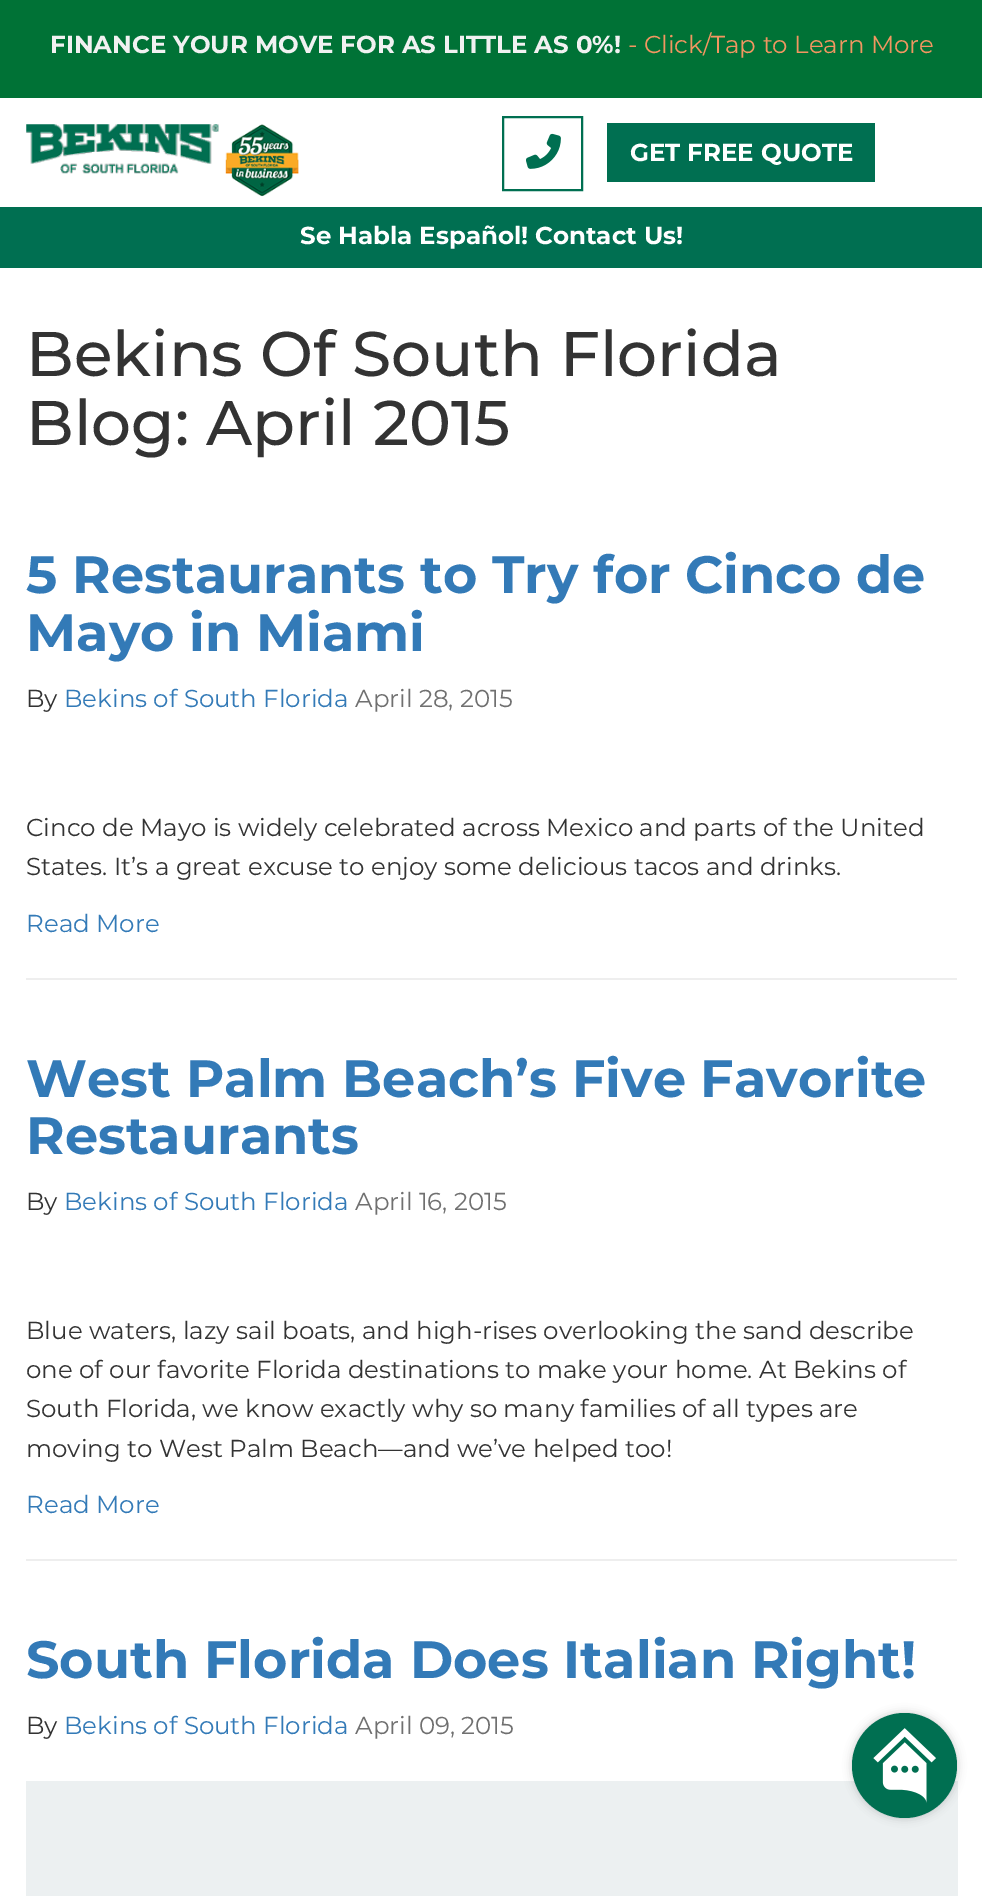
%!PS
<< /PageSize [982 1896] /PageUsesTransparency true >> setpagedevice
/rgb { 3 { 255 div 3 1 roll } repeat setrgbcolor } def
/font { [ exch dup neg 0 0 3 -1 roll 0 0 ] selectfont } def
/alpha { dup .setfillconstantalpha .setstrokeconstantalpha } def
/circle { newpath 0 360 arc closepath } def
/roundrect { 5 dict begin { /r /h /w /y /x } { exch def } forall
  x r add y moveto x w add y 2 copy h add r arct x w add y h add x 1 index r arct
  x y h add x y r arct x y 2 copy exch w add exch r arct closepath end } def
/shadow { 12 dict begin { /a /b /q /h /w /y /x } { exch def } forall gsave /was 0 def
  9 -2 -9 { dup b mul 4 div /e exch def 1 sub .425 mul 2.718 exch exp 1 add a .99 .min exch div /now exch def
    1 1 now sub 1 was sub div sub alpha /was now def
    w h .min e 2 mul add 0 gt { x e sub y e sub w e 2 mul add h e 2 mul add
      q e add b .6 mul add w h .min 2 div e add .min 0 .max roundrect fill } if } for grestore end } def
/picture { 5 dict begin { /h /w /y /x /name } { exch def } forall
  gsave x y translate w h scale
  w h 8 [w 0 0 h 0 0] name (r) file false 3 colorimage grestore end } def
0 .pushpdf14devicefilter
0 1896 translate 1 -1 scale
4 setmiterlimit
255 255 255 rgb
0 0 982 1896 rectfill
0 114 54 rgb
0 0 982 98 rectfill
(img/1.rgb) 26 124 193 50 picture
(img/2.rgb) 218 124 81 73 picture
0 111 81 rgb
2 setlinewidth
503 117 79 73 rectstroke
(img/3.rgb) 526 133 35 36 picture
[
  [607 123 268 59 0 111 81]
  [0 207 982 61 0 111 81]
  [26 978 931 2 238 238 238]
  [26 1559 931 2 238 238 238]
  [26 1781 932 115 236 240 241]
] { aload pop rgb rectfill } forall
0 0 0 rgb
852 1713 105 105 52.5 4.5 0.2 shadow
0 111 81 rgb
904.5 1765.5 52.5 circle fill
(img/4.rgb) 873 1728 63 75 picture
/Montserrat-Bold 24.5 font
241 241 241 rgb
50 53 moveto (FINANCE YOUR MOVE FOR AS LITTLE AS 0%!) show
/Montserrat-Regular 24.5 font
242 150 97 rgb
628 53 moveto (- Click/Tap to Learn More) show
/Montserrat-Bold 24.5 font
255 255 255 rgb
630 161 moveto (GET FREE QUOTE) show
300 244 moveto (Se Habla Español! Contact Us!) show
/Montserrat-Medium 63 font
51 51 51 rgb
26 376 moveto (Bekins Of South Florida) show
26 445 moveto (Blog: April 2015) show
/Montserrat-Bold 52.5 font
51 122 183 rgb
26 593 moveto (5 Restaurants to Try for Cinco de) show
26 651 moveto (Mayo in Miami) show
/Montserrat-Regular 24.5 font
51 51 51 rgb
26 707 moveto (By) show
51 122 183 rgb
64 707 moveto (Bekins of South Florida) show
112 112 112 rgb
355 707 moveto (April 28, 2015) show
51 51 51 rgb
26 836 moveto (Cinco de Mayo is widely celebrated across Mexico and parts of the United) show
26 875 moveto (States. It’s a great excuse to enjoy some delicious tacos and drinks.) show
51 122 183 rgb
26 932 moveto (Read More) show
/Montserrat-Bold 52.5 font
26 1097 moveto (West Palm Beach’s Five Favorite) show
26 1154 moveto (Restaurants) show
/Montserrat-Regular 24.5 font
51 51 51 rgb
26 1210 moveto (By) show
51 122 183 rgb
64 1210 moveto (Bekins of South Florida) show
112 112 112 rgb
355 1210 moveto (April 16, 2015) show
51 51 51 rgb
[
  [(Blue waters, lazy sail boats, and high-rises overlooking the sand describe) 26 1339]
  [(one of our favorite Florida destinations to make your home. At Bekins of) 26 1378]
  [(South Florida, we know exactly why so many families of all types are) 26 1417]
  [(moving to West Palm Beach—and we’ve helped too!) 26 1457]
] { aload pop moveto show } forall
51 122 183 rgb
26 1513 moveto (Read More) show
/Montserrat-Bold 52.5 font
26 1678 moveto (South Florida Does Italian Right!) show
/Montserrat-Regular 24.5 font
51 51 51 rgb
26 1734 moveto (By) show
51 122 183 rgb
64 1734 moveto (Bekins of South Florida) show
112 112 112 rgb
355 1734 moveto (April 09, 2015) show
.poppdf14devicefilter showpage
